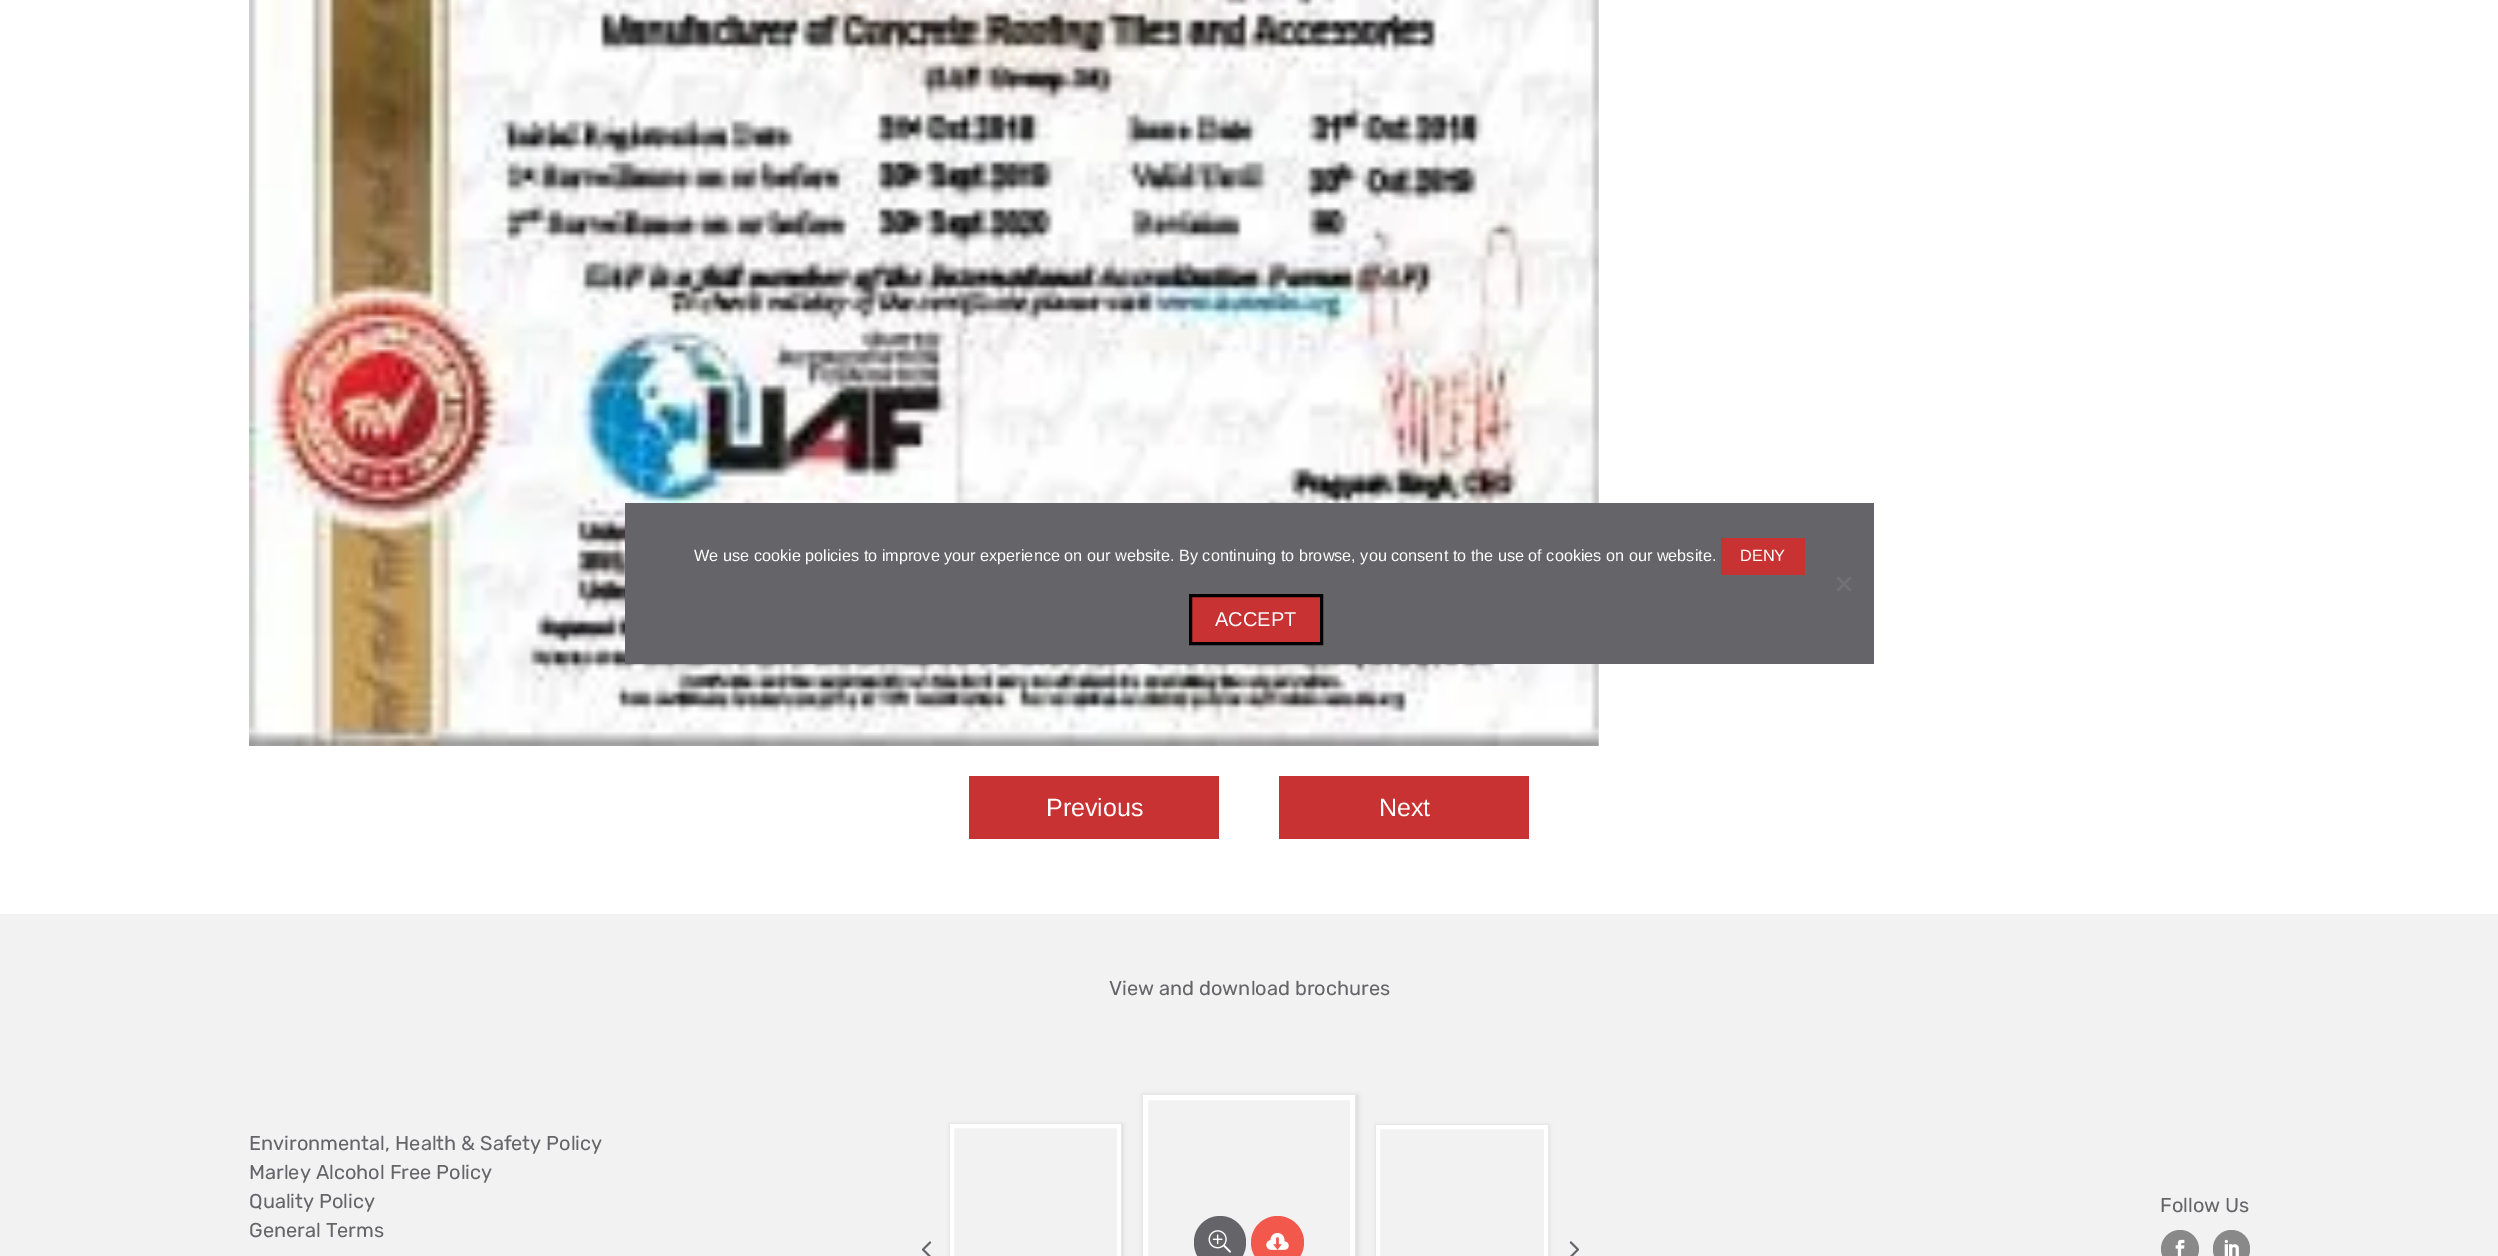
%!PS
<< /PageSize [2498 1256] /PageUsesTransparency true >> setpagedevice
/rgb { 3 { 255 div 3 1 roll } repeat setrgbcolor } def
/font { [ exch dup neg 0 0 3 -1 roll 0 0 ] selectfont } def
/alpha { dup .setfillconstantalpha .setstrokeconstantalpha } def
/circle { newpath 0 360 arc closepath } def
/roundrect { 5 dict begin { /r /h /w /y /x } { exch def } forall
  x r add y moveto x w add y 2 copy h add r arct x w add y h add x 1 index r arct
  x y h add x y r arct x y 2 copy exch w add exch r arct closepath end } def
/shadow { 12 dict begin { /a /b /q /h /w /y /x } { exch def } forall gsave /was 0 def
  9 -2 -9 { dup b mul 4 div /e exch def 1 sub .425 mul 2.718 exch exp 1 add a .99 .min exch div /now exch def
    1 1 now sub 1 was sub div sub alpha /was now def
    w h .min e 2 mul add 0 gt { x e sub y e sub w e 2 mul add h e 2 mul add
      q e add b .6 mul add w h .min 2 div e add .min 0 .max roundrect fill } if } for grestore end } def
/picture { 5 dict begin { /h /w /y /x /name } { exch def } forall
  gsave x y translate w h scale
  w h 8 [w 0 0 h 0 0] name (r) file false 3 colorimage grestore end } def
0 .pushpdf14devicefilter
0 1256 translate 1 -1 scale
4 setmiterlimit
255 255 255 rgb
0 0 2498 1256 rectfill
(img/1.rgb) 249 0 1350 746 picture
100 100 105 rgb
625 503 1249 161 rectfill
200 50 50 rgb
1721 538 84 37 rectfill
114 114 117 rgb
1850 576.5 moveto 1851.5 578.5 lineto 1838.5 591.5 lineto 1836.5 589.5 lineto closepath fill
1836.5 578.5 moveto 1838.5 576.5 lineto 1851.5 589.5 lineto 1850 591.5 lineto closepath fill
200 50 50 rgb
1190.5 595.5 moveto 1321.5 595.5 lineto 1321.5 643.5 lineto 1190.5 643.5 lineto closepath gsave fill grestore
0 0 0 rgb
3 setlinewidth
stroke
[
  [969 776 250 63 200 50 50]
  [1279 776 250 63 200 50 50]
  [0 914 2498 342 242 242 242]
] { aload pop rgb rectfill } forall
gsave
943 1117 moveto 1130 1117 lineto 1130 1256 lineto 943 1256 lineto closepath 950 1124 moveto 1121 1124 lineto 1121 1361 lineto 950 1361 lineto closepath eoclip newpath
0 0 0 rgb
950 1124 173 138 0 2 0.1 shadow
grestore
255 255 255 rgb
4 setlinewidth
952 1126 167 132 rectstroke
gsave
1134 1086 moveto 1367 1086 lineto 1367 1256 lineto 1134 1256 lineto closepath 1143 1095 moveto 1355 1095 lineto 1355 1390 lineto 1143 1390 lineto closepath eoclip newpath
0 0 0 rgb
1143 1095 215 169 0 2.5 0.1 shadow
grestore
5 setlinewidth
1145.5 1097.5 207 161 rectstroke
100 100 105 rgb
1194 1216 52 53 26 roundrect fill
(img/2.rgb) 1208 1230 23 23 picture
243 88 76 rgb
1277.5 1242.5 26.5 circle fill
(img/3.rgb) 1266 1233 23 17 picture
gsave
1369 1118 moveto 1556 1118 lineto 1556 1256 lineto 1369 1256 lineto closepath 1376 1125 moveto 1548 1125 lineto 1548 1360 lineto 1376 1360 lineto closepath eoclip newpath
0 0 0 rgb
1376 1125 173 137 0 2 0.1 shadow
grestore
255 255 255 rgb
4 setlinewidth
1378 1127 168 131 rectstroke
(img/4.rgb) 921 1241 11 15 picture
(img/5.rgb) 1569 1241 10 15 picture
137 137 137 rgb
2180 1249 19 circle fill
(img/6.rgb) 2175 1239 10 17 picture
2213 1230 37 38 18.5 roundrect fill
(img/7.rgb) 2224 1239 15 17 picture
/LiberationSans-Regular 16.25 font
255 255 255 rgb
694 561 moveto (We use cookie policies to improve your experience on our website. By continuing to browse, you consent to the use of cookies on our website.) show
1740 561 moveto (DENY) show
/LiberationSans-Regular 20 font
1215 626 moveto (ACCEPT) show
/LiberationSans-Regular 25 font
1046 816 moveto (Previous) show
1379 816 moveto (Next) show
/Rubik-Regular 20 font
100 100 105 rgb
[
  [(View and download brochures) 1109 995]
  [(Environmental, Health & Safety Policy) 249 1150]
  [(Marley Alcohol Free Policy) 249 1179]
  [(Quality Policy) 249 1208]
  [(General Terms) 249 1237]
  [(Follow Us) 2160 1212]
] { aload pop moveto show } forall
.poppdf14devicefilter showpage
